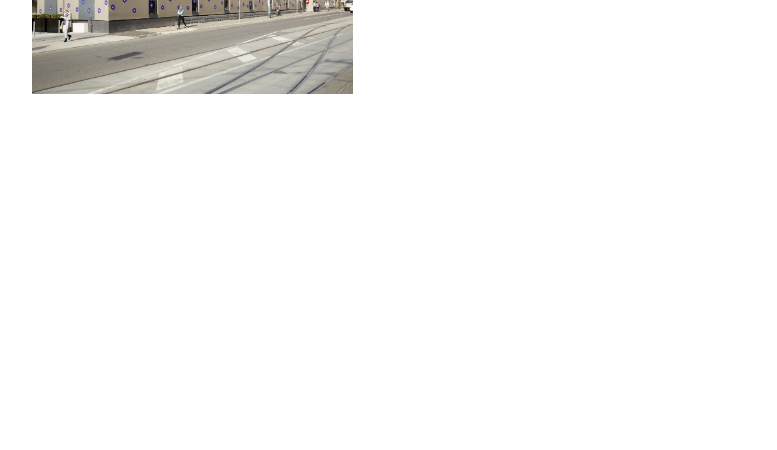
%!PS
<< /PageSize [777 450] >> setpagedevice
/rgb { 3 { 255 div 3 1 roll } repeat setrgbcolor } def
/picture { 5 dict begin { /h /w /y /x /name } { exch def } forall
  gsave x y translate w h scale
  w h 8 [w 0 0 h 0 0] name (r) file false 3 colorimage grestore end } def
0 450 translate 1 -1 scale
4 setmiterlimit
255 255 255 rgb
0 0 777 450 rectfill
(img/1.rgb) 32 0 321 94 picture
showpage
